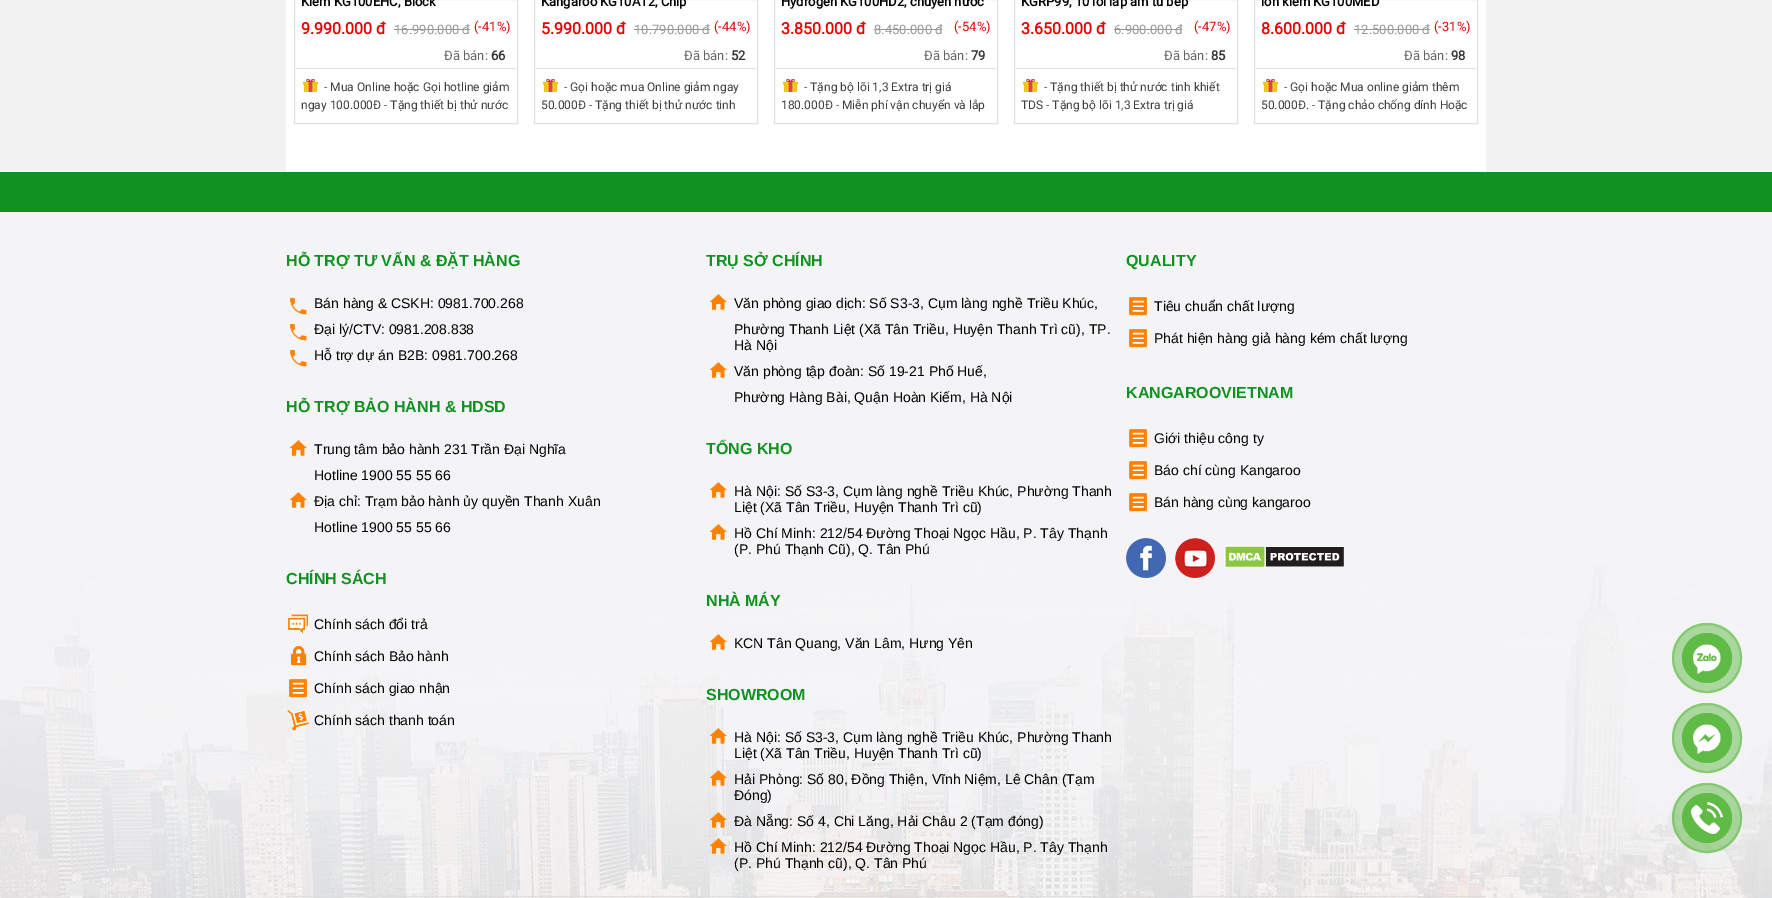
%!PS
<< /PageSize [1772 898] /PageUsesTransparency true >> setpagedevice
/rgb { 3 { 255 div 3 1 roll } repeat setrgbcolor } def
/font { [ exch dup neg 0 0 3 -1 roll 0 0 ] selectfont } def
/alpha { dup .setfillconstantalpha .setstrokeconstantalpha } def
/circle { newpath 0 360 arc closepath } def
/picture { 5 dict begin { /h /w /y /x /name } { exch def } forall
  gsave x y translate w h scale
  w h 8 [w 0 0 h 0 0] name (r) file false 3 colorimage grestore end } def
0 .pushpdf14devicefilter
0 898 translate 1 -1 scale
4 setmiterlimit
242 242 242 rgb
0 0 1772 898 rectfill
255 255 255 rgb
286 0 1200 172 rectfill
225 225 225 rgb
294.5 -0.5 223 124 rectstroke
152 152 152 rgb
394 29 76 1 rectfill
225 225 225 rgb
296 68 220 1 rectfill
(img/1.rgb) 303 79 15 13 picture
534.5 -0.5 223 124 rectstroke
152 152 152 rgb
634 29 76 1 rectfill
225 225 225 rgb
536 68 220 1 rectfill
(img/1.rgb) 543 79 15 13 picture
774.5 -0.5 223 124 rectstroke
152 152 152 rgb
874 29 68 1 rectfill
225 225 225 rgb
776 68 220 1 rectfill
(img/1.rgb) 783 79 15 13 picture
1014.5 -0.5 223 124 rectstroke
152 152 152 rgb
1114 29 68 1 rectfill
225 225 225 rgb
1016 68 220 1 rectfill
(img/1.rgb) 1023 79 15 13 picture
1254.5 -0.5 223 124 rectstroke
152 152 152 rgb
1354 29 76 1 rectfill
225 225 225 rgb
1256 68 220 1 rectfill
(img/1.rgb) 1263 79 15 13 picture
244 244 246 rgb
0 212 1772 354 rectfill
(img/2.rgb) 0 566 1772 332 picture
16 145 33 rgb
0 172 1772 40 rectfill
(img/3.rgb) 290 297 17 18 picture
(img/3.rgb) 290 323 17 18 picture
(img/3.rgb) 290 349 17 18 picture
(img/4.rgb) 289 440 18 16 picture
(img/4.rgb) 289 492 18 16 picture
(img/5.rgb) 288 614 21 20 picture
(img/6.rgb) 290 645 17 21 picture
(img/7.rgb) 289 679 18 19 picture
(img/8.rgb) 287 710 22 21 picture
(img/4.rgb) 709 294 18 16 picture
(img/4.rgb) 709 362 18 16 picture
(img/4.rgb) 709 482 18 16 picture
(img/4.rgb) 709 524 18 16 picture
(img/4.rgb) 709 634 18 16 picture
(img/9.rgb) 709 728 18 16 picture
(img/10.rgb) 709 770 18 16 picture
(img/11.rgb) 709 812 18 16 picture
(img/12.rgb) 709 838 18 16 picture
(img/13.rgb) 1129 297 18 19 picture
(img/13.rgb) 1129 329 18 19 picture
(img/13.rgb) 1129 429 18 19 picture
(img/13.rgb) 1129 461 18 19 picture
(img/13.rgb) 1129 493 18 19 picture
(img/14.rgb) 1126 538 40 40 picture
(img/15.rgb) 1175 538 40 40 picture
(img/16.rgb) 1224 545 120 23 picture
221 221 221 rgb
286 896 1200 1 rectfill
170 215 158 rgb
2 setlinewidth
1707 658 34 circle stroke
0.5 alpha
96 187 70 rgb
1707 658 35 circle fill
1 alpha
1707 658 25 circle fill
(img/17.rgb) 1693 644 28 30 picture
170 215 158 rgb
1707 738 34 circle stroke
0.5 alpha
96 187 70 rgb
1707 738 35 circle fill
1 alpha
1707 738 25 circle fill
(img/18.rgb) 1693 724 28 30 picture
0.5 alpha
1707 818 34 circle stroke
1707 818 35 circle fill
1 alpha
1707 818 25 circle fill
(img/19.rgb) 1691 802 32 32 picture
/Roboto-Bold 13 font
0 0 0 rgb
301 6 moveto (Kiềm KG100EHC, Block) show
/Roboto-Bold 16 font
234 0 0 rgb
301 34 moveto (9.990.000 đ) show
/Roboto-Regular 13 font
152 152 152 rgb
394 34 moveto (16.990.000 đ) show
234 0 0 rgb
474 31 moveto (\(-41%\)) show
102 102 102 rgb
444 60 moveto (Đã bán:) show
/Roboto-Bold 13 font
51 51 51 rgb
491 60 moveto (66) show
/Roboto-Regular 12 font
61 61 61 rgb
324 91 moveto (- Mua Online hoặc Gọi hotline giảm) show
301 109 moveto (ngay 100.000Đ - Tặng thiết bị thử nước) show
/Roboto-Bold 13 font
0 0 0 rgb
541 6 moveto (Kangaroo KG10A12, Chíp) show
/Roboto-Bold 16 font
234 0 0 rgb
541 34 moveto (5.990.000 đ) show
/Roboto-Regular 13 font
152 152 152 rgb
634 34 moveto (10.790.000 đ) show
234 0 0 rgb
714 31 moveto (\(-44%\)) show
102 102 102 rgb
684 60 moveto (Đã bán:) show
/Roboto-Bold 13 font
51 51 51 rgb
731 60 moveto (52) show
/Roboto-Regular 12 font
61 61 61 rgb
564 91 moveto (- Gọi hoặc mua Online giảm ngay) show
541 109 moveto (50.000Đ - Tặng thiết bị thử nước tinh) show
/Roboto-Bold 13 font
0 0 0 rgb
781 6 moveto (Hydrogen KG100HD2, chuyên nước) show
/Roboto-Bold 16 font
234 0 0 rgb
781 34 moveto (3.850.000 đ) show
/Roboto-Regular 13 font
152 152 152 rgb
874 34 moveto (8.450.000 đ) show
234 0 0 rgb
954 31 moveto (\(-54%\)) show
102 102 102 rgb
924 60 moveto (Đã bán:) show
/Roboto-Bold 13 font
51 51 51 rgb
971 60 moveto (79) show
/Roboto-Regular 12 font
61 61 61 rgb
804 91 moveto (- Tặng bộ lõi 1,3 Extra trị giá) show
781 109 moveto (180.000Đ - Miễn phí vận chuyển và lắp) show
/Roboto-Bold 13 font
0 0 0 rgb
1021 6 moveto (KGRP99, 10 lõi lắp âm tủ bếp) show
/Roboto-Bold 16 font
234 0 0 rgb
1021 34 moveto (3.650.000 đ) show
/Roboto-Regular 13 font
152 152 152 rgb
1114 34 moveto (6.900.000 đ) show
234 0 0 rgb
1194 31 moveto (\(-47%\)) show
102 102 102 rgb
1164 60 moveto (Đã bán:) show
/Roboto-Bold 13 font
51 51 51 rgb
1211 60 moveto (85) show
/Roboto-Regular 12 font
61 61 61 rgb
1044 91 moveto (- Tặng thiết bị thử nước tinh khiết) show
1021 109 moveto (TDS - Tặng bộ lõi 1,3 Extra trị giá) show
/Roboto-Bold 13 font
0 0 0 rgb
1261 6 moveto (ion kiềm KG100MED) show
/Roboto-Bold 16 font
234 0 0 rgb
1261 34 moveto (8.600.000 đ) show
/Roboto-Regular 13 font
152 152 152 rgb
1354 34 moveto (12.500.000 đ) show
234 0 0 rgb
1434 31 moveto (\(-31%\)) show
102 102 102 rgb
1404 60 moveto (Đã bán:) show
/Roboto-Bold 13 font
51 51 51 rgb
1451 60 moveto (98) show
/Roboto-Regular 12 font
61 61 61 rgb
1284 91 moveto (- Gọi hoặc Mua online giảm thêm) show
1261 109 moveto (50.000Đ. - Tặng chảo chống dính Hoặc) show
/LiberationSans-Bold 16 font
16 145 33 rgb
286 266 moveto (HỖ TRỢ TƯ VẤN & ĐẶT HÀNG) show
/LiberationSans-Regular 14 font
0 0 0 rgb
[
  [(Bán hàng & CSKH: 0981.700.268) 314 308]
  [(Đại lý/CTV: 0981.208.838) 314 334]
  [(Hỗ trợ dự án B2B: 0981.700.268) 314 360]
] { aload pop moveto show } forall
/LiberationSans-Bold 16 font
16 145 33 rgb
286 412 moveto (HỖ TRỢ BẢO HÀNH & HDSD) show
/LiberationSans-Regular 14 font
0 0 0 rgb
[
  [(Trung tâm bảo hành 231 Trần Đại Nghĩa) 314 454]
  [(Hotline 1900 55 55 66) 314 480]
  [(Địa chỉ: Trạm bảo hành ủy quyền Thanh Xuân) 314 506]
  [(Hotline 1900 55 55 66) 314 532]
] { aload pop moveto show } forall
/LiberationSans-Bold 16 font
16 145 33 rgb
286 584 moveto (CHÍNH SÁCH) show
/LiberationSans-Regular 14 font
0 0 0 rgb
[
  [(Chính sách đổi trả) 314 629]
  [(Chính sách Bảo hành) 314 661]
  [(Chính sách giao nhận) 314 693]
  [(Chính sách thanh toán) 314 725]
] { aload pop moveto show } forall
/LiberationSans-Bold 16 font
16 145 33 rgb
706 266 moveto (TRỤ SỞ CHÍNH) show
/LiberationSans-Regular 14 font
0 0 0 rgb
[
  [(Văn phòng giao dịch: Số S3-3, Cụm làng nghề Triều Khúc,) 734 308]
  [(Phường Thanh Liệt \(Xã Tân Triều, Huyện Thanh Trì cũ\), TP.) 734 334]
  [(Hà Nội) 734 350]
  [(Văn phòng tập đoàn: Số 19-21 Phố Huế,) 734 376]
  [(Phường Hàng Bài, Quận Hoàn Kiếm, Hà Nội) 734 402]
] { aload pop moveto show } forall
/LiberationSans-Bold 16 font
16 145 33 rgb
706 454 moveto (TỔNG KHO) show
/LiberationSans-Regular 14 font
0 0 0 rgb
[
  [(Hà Nội: Số S3-3, Cụm làng nghề Triều Khúc, Phường Thanh) 734 496]
  [(Liệt \(Xã Tân Triều, Huyện Thanh Trì cũ\)) 734 512]
  [(Hồ Chí Minh: 212/54 Đường Thoại Ngọc Hầu, P. Tây Thạnh) 734 538]
  [(\(P. Phú Thạnh Cũ\), Q. Tân Phú) 734 554]
] { aload pop moveto show } forall
/LiberationSans-Bold 16 font
16 145 33 rgb
706 606 moveto (NHÀ MÁY) show
/LiberationSans-Regular 14 font
0 0 0 rgb
734 648 moveto (KCN Tân Quang, Văn Lâm, Hưng Yên) show
/LiberationSans-Bold 16 font
16 145 33 rgb
706 700 moveto (SHOWROOM) show
/LiberationSans-Regular 14 font
0 0 0 rgb
[
  [(Hà Nội: Số S3-3, Cụm làng nghề Triều Khúc, Phường Thanh) 734 742]
  [(Liệt \(Xã Tân Triều, Huyện Thanh Trì cũ\)) 734 758]
  [(Hải Phòng: Số 80, Đồng Thiện, Vĩnh Niệm, Lê Chân \(Tạm) 734 784]
  [(Đóng\)) 734 800]
  [(Đà Nẵng: Số 4, Chi Lăng, Hải Châu 2 \(Tạm đóng\)) 734 826]
  [(Hồ Chí Minh: 212/54 Đường Thoại Ngọc Hầu, P. Tây Thạnh) 734 852]
  [(\(P. Phú Thạnh cũ\), Q. Tân Phú) 734 868]
] { aload pop moveto show } forall
/LiberationSans-Bold 16 font
16 145 33 rgb
1126 266 moveto (QUALITY) show
/LiberationSans-Regular 14 font
0 0 0 rgb
1154 311 moveto (Tiêu chuẩn chất lượng) show
1154 343 moveto (Phát hiện hàng giả hàng kém chất lượng) show
/LiberationSans-Bold 16 font
16 145 33 rgb
1126 398 moveto (KANGAROOVIETNAM) show
/LiberationSans-Regular 14 font
0 0 0 rgb
[
  [(Giới thiệu công ty) 1154 443]
  [(Báo chí cùng Kangaroo) 1154 475]
  [(Bán hàng cùng kangaroo) 1154 507]
] { aload pop moveto show } forall
.poppdf14devicefilter showpage
